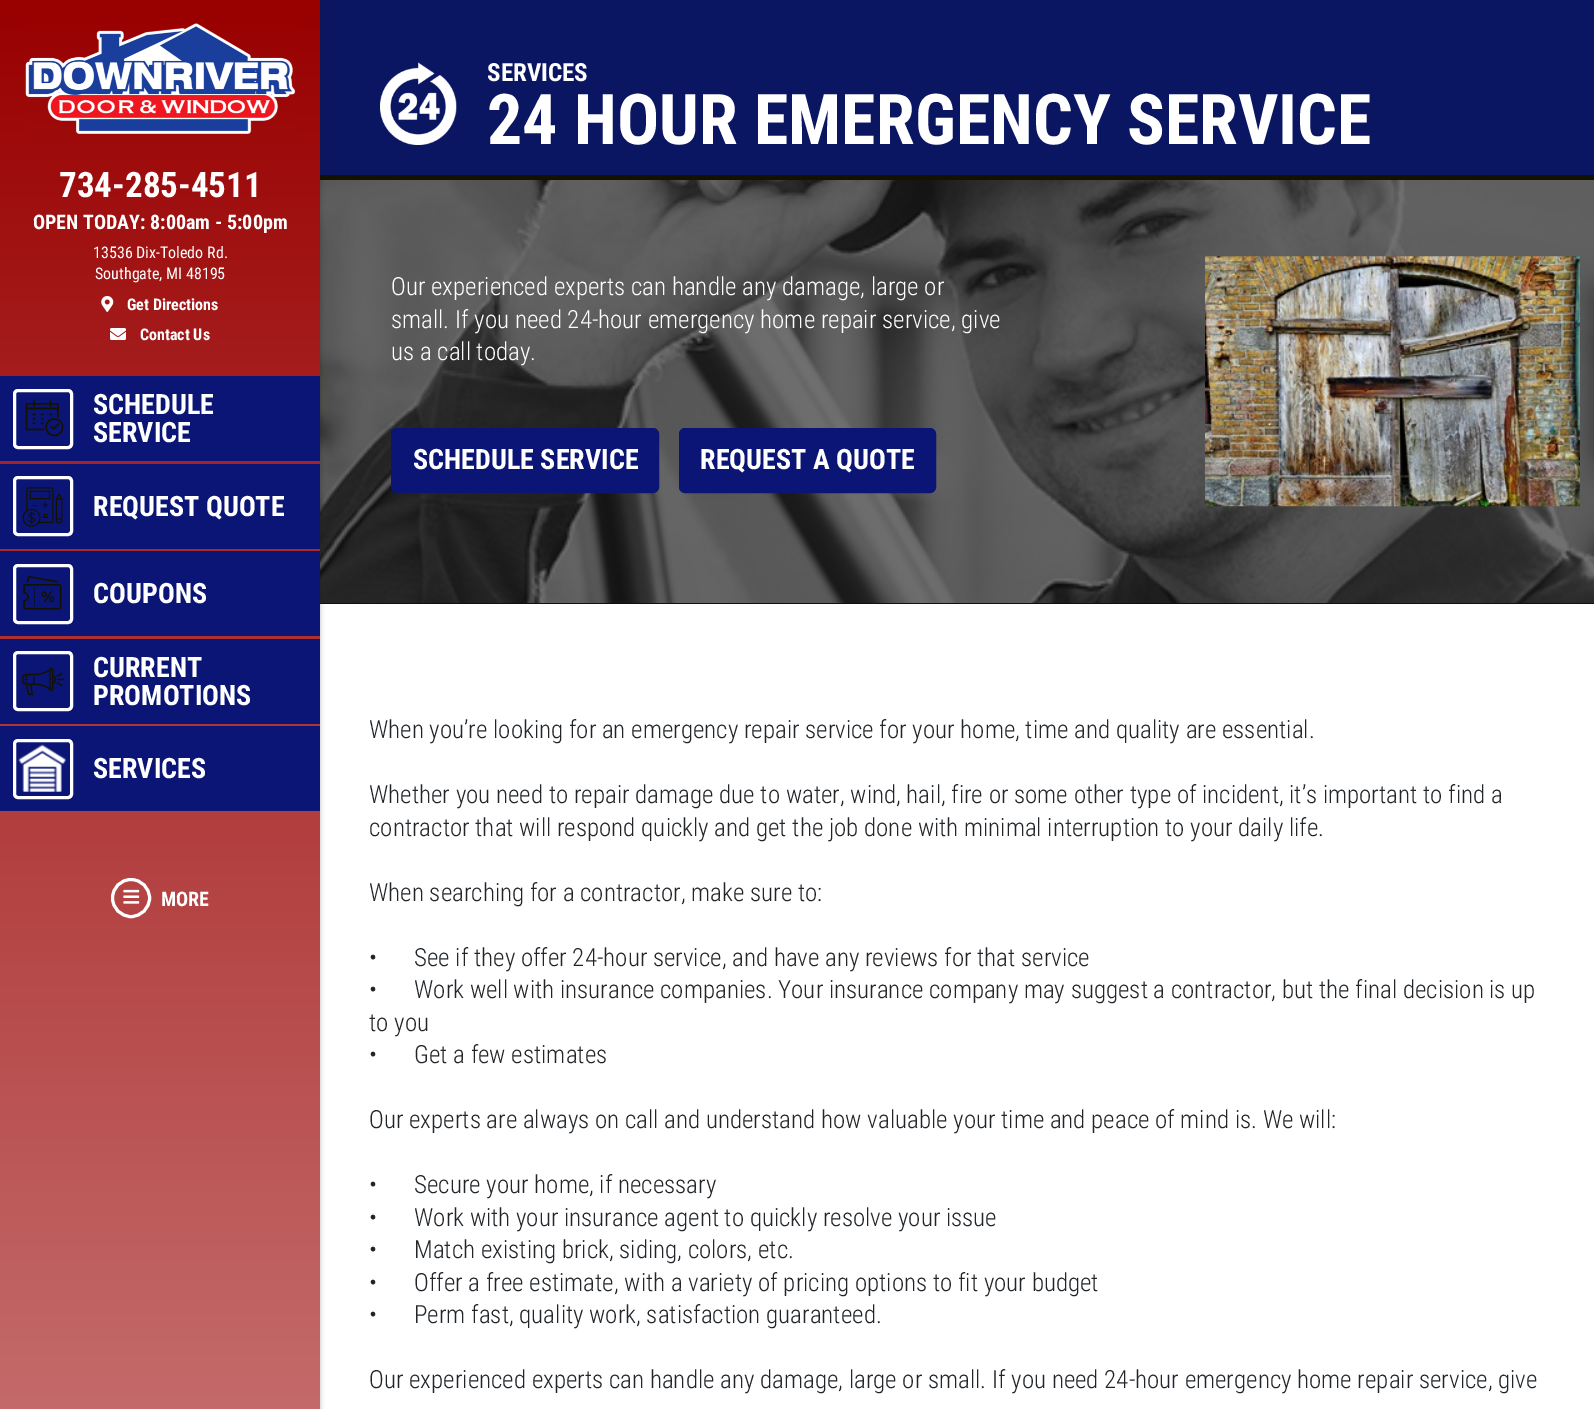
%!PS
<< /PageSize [1594 1409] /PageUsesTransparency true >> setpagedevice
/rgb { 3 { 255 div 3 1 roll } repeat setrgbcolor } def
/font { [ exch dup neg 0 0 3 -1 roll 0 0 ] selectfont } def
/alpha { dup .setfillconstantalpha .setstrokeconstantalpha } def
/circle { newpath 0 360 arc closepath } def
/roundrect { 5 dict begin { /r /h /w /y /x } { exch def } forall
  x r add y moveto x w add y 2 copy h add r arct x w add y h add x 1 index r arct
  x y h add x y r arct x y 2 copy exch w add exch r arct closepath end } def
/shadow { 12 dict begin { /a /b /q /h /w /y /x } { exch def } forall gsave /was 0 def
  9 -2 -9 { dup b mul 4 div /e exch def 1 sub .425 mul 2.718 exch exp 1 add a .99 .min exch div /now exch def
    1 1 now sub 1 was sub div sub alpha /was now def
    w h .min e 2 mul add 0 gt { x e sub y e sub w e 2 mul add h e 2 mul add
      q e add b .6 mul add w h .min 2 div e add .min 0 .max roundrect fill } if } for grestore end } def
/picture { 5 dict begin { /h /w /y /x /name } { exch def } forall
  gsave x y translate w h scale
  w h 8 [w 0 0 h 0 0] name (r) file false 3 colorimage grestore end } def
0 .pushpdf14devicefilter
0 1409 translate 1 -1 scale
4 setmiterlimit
255 255 255 rgb
0 0 1594 1409 rectfill
[
  [320 175 1274 5 19 18 0]
  [320 0 1274 175 11 22 99]
  [320 603 1274 1 19 18 0]
] { aload pop rgb rectfill } forall
(img/11.rgb) 320 180 1274 423 picture
0 0 320 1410 0 2.5 0.3 shadow
gsave 0 0 moveto 320 0 lineto 320 1409 lineto 0 1409 lineto closepath clip newpath
<< /ShadingType 2 /ColorSpace /DeviceRGB /Coords [160 0 160 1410] /Extend [true true] /Function << /FunctionType 2 /Domain [0 1] /C0 [0.6 0 0] /C1 [0.769 0.416 0.416] /N 1 >> >> shfill grestore
(img/1.rgb) 25 23 271 111 picture
(img/2.rgb) 101 296 13 16 picture
(img/3.rgb) 110 328 16 12 picture
10 21 117 rgb
0 376 320 85 rectfill
255 255 255 rgb
3 setlinewidth
14.5 390.5 57 57 3.5 roundrect stroke
(img/4.rgb) 25 400 39 37 picture
10 21 117 rgb
0 464 320 85 rectfill
255 255 255 rgb
14.5 477.5 57 57 3.5 roundrect stroke
(img/5.rgb) 22 487 41 40 picture
10 21 117 rgb
0 551 320 85 rectfill
255 255 255 rgb
14.5 565.5 57 57 3.5 roundrect stroke
(img/6.rgb) 23 576 39 34 picture
10 21 117 rgb
0 639 320 85 rectfill
255 255 255 rgb
14.5 652.5 57 57 3.5 roundrect stroke
(img/7.rgb) 22 667 43 29 picture
10 21 117 rgb
0 726 320 85 rectfill
255 255 255 rgb
14.5 740.5 57 57 3.5 roundrect stroke
(img/8.rgb) 18 744 48 48 picture
131 898 18.5 circle stroke
(img/9.rgb) 123 889 17 15 picture
(img/10.rgb) 380 62 77 83 picture
10 21 117 rgb
391.5 428.5 267 64 5.5 roundrect gsave fill grestore
1 setlinewidth
stroke
679.5 428.5 256 64 5.5 roundrect gsave fill grestore
stroke
(img/12.rgb) 1205 256 375 251 picture
/RobotoCondensed-Bold 35 font
255 255 255 rgb
59 197 moveto (734-285-4511) show
/RobotoCondensed-Bold 20 font
33 229 moveto (OPEN TODAY: 8:00am - 5:00pm) show
/RobotoCondensed-Regular 16 font
93 258 moveto (13536 Dix-Toledo Rd.) show
95 279 moveto (Southgate, MI 48195) show
/RobotoCondensed-Bold 16 font
127 310 moveto (Get Directions) show
140 340 moveto (Contact Us) show
/RobotoCondensed-Bold 28 font
[
  [(SCHEDULE) 93 414]
  [(SERVICE) 93 442]
  [(REQUEST QUOTE) 93 516]
  [(COUPONS) 93 603]
  [(CURRENT) 93 677]
  [(PROMOTIONS) 93 705]
  [(SERVICES) 93 778]
] { aload pop moveto show } forall
/RobotoCondensed-Bold 20 font
161 906 moveto (MORE) show
/RobotoCondensed-Bold 25 font
487 81 moveto (SERVICES) show
/RobotoCondensed-Bold 70 font
487 144 moveto (24 HOUR EMERGENCY SERVICE) show
/RobotoCondensed-Light 25 font
[
  [(Our experienced experts can handle any damage, large or) 391 295]
  [(small. If you need 24-hour emergency home repair service, give) 391 328]
  [(us a call today.) 391 360]
] { aload pop moveto show } forall
/RobotoCondensed-Bold 28 font
413 469 moveto (SCHEDULE SERVICE) show
700 469 moveto (REQUEST A QUOTE) show
/RobotoCondensed-Light 25 font
33 37 41 rgb
[
  [(When you’re looking for an emergency repair service for your home, time and quality are essential.) 369 738]
  [(Whether you need to repair damage due to water, wind, hail, fire or some other type of incident, it’s important to find a) 369 803]
  [(contractor that will respond quickly and get the job done with minimal interruption to your daily life.) 369 836]
  [(When searching for a contractor, make sure to:) 369 901]
  [(•) 369 966]
  [(See if they offer 24-hour service, and have any reviews for that service) 414 966]
  [(•) 369 998]
  [(Work well with insurance companies. Your insurance company may suggest a contractor, but the final decision is up) 414 998]
  [(to you) 369 1031]
  [(•) 369 1063]
  [(Get a few estimates) 414 1063]
  [(Our experts are always on call and understand how valuable your time and peace of mind is. We will:) 369 1128]
  [(•) 369 1193]
  [(Secure your home, if necessary) 414 1193]
  [(•) 369 1226]
  [(Work with your insurance agent to quickly resolve your issue) 414 1226]
  [(•) 369 1258]
  [(Match existing brick, siding, colors, etc.) 414 1258]
  [(•) 369 1291]
  [(Offer a free estimate, with a variety of pricing options to fit your budget) 414 1291]
  [(•) 369 1323]
  [(Perm fast, quality work, satisfaction guaranteed.) 414 1323]
  [(Our experienced experts can handle any damage, large or small. If you need 24-hour emergency home repair service, give) 369 1388]
] { aload pop moveto show } forall
.poppdf14devicefilter showpage
